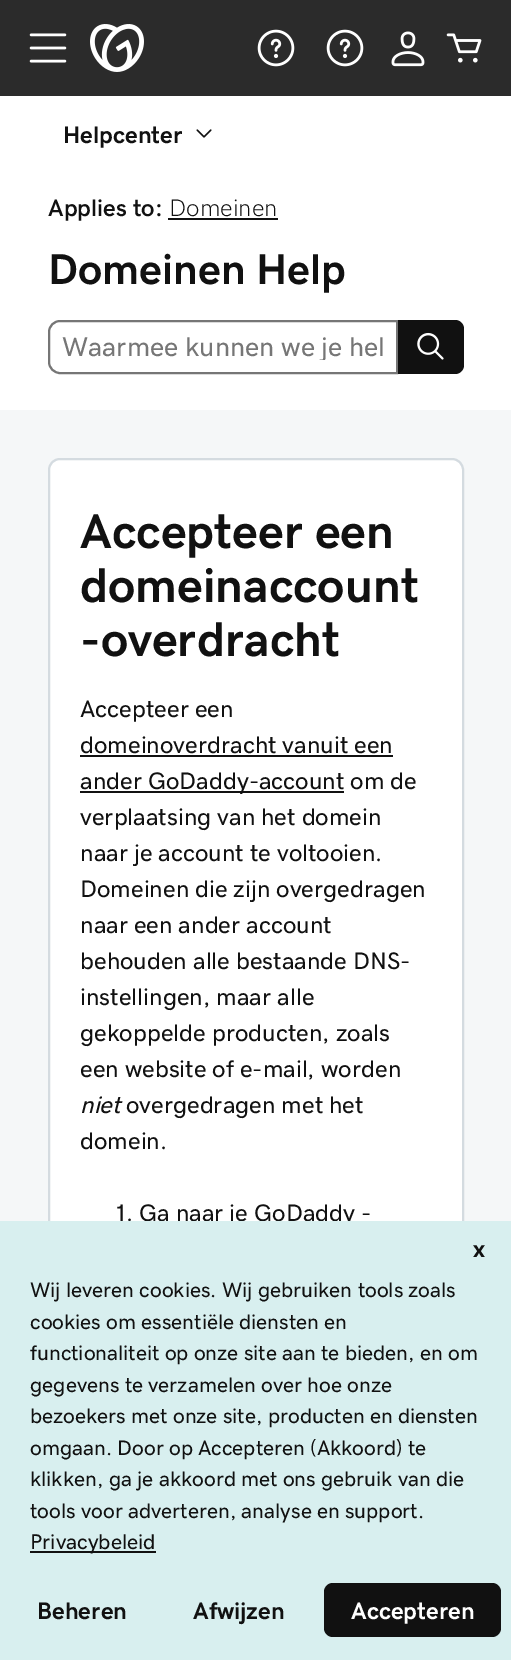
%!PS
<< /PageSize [511 1660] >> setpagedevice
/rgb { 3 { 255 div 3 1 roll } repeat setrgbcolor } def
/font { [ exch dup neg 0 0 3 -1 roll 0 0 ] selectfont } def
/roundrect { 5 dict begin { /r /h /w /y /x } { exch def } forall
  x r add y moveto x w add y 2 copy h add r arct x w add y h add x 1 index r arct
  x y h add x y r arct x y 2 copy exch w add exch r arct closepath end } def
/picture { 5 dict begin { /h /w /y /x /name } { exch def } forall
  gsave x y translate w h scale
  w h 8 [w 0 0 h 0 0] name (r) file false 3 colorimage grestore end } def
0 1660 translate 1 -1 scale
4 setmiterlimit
255 255 255 rgb
0 0 511 1660 rectfill
43 43 43 rgb
0 0 511 96 rectfill
(img/1.rgb) 29 33 38 30 picture
(img/2.rgb) 90 24 54 48 picture
(img/3.rgb) 257 29 38 38 picture
(img/3.rgb) 326 29 38 38 picture
(img/4.rgb) 391 31 34 36 picture
(img/5.rgb) 446 33 36 30 picture
(img/6.rgb) 196 129 16 9 picture
17 17 17 rgb
168 218 110 2 rectfill
118 118 118 rgb
2 setlinewidth
60 321 moveto 397 321 lineto 397 373 lineto 60 373 lineto 54 373 49 368 49 362 curveto 49 332 lineto 49 326 54 321 60 321 curveto closepath stroke
17 17 17 rgb
398 320 moveto 455 320 lineto 460 320 464 324 464 329 curveto 464 365 lineto 464 370 460 374 455 374 curveto 398 374 lineto closepath fill
(img/7.rgb) 417 332 27 28 picture
245 247 248 rgb
0 410 511 811 rectfill
255 255 255 rgb
49 459 414 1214 11 roundrect gsave fill grestore
212 219 224 rgb
stroke
17 17 17 rgb
80 755 313 2 rectfill
80 791 264 2 rectfill
/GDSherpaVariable-Bold 24 font
63 143 moveto (Helpcenter) show
/GDSherpaVariable-SemiBold 24 font
48 216 moveto (Applies to:) show
/GDSherpaVariable-ExtraLight 24 font
169 216 moveto (Domeinen) show
/GDSherpaVariable-Bold 43.25 font
48 284 moveto (Domeinen Help) show
gsave
62 333 322 27 rectclip
/GDSherpaVariable-Regular 27 font
118 118 118 rgb
62 356 moveto (Waarmee kunnen we je hel) show
grestore
/GDSherpaVariable-ExtraBold 48.75 font
[
  [(Accepteer een) 80 548]
  [(domeinaccount) 80 602]
  [(-overdracht) 80 656]
] { aload pop moveto show } forall
/GDSherpaVariable-Regular 24 font
[
  [(Accepteer een) 80 717]
  [(domeinoverdracht vanuit een) 80 753]
  [(ander GoDaddy-account om de) 80 789]
  [(verplaatsing van het domein) 80 825]
  [(naar je account te voltooien.) 80 861]
  [(Domeinen die zijn overgedragen) 80 897]
  [(naar een ander account) 80 933]
  [(behouden alle bestaande DNS-) 80 969]
  [(instellingen, maar alle) 80 1005]
  [(gekoppelde producten, zoals) 80 1041]
  [(een website of e-mail, worden) 80 1077]
] { aload pop moveto show } forall
/GDSherpaVariable-Italic 24 font
80 1113 moveto (niet) show
/GDSherpaVariable-Regular 24 font
[
  [(overgedragen met het) 126 1113]
  [(domein.) 80 1149]
  [(1. Ga naar je GoDaddy -) 115 1221]
] { aload pop moveto show } forall
216 239 239 rgb
0 1221 511 439 rectfill
/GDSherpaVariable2-Bold 24 font
17 17 17 rgb
473 1257 moveto (x) show
/GDSherpaVariable-Regular 21 font
[
  [(Wij leveren cookies. Wij gebruiken tools zoals) 30 1297]
  [(cookies om essentiële diensten en) 30 1329]
  [(functionaliteit op onze site aan te bieden, en om) 30 1360]
  [(gegevens te verzamelen over hoe onze) 30 1392]
  [(bezoekers met onze site, producten en diensten) 30 1423]
  [(omgaan. Door op Accepteren \(Akkoord\) te) 30 1455]
  [(klikken, ga je akkoord met ons gebruik van die) 30 1486]
  [(tools voor adverteren, analyse en support.) 30 1518]
] { aload pop moveto show } forall
30 1551 126 2 rectfill
/GDSherpaVariable-Regular 21.25 font
30 1549 moveto (Privacybeleid) show
/GDSherpaVariable2-Bold 24 font
37 1619 moveto (Beheren) show
193 1619 moveto (Afwijzen) show
324 1583 177 54 9 roundrect fill
255 255 255 rgb
351 1619 moveto (Accepteren) show
showpage
